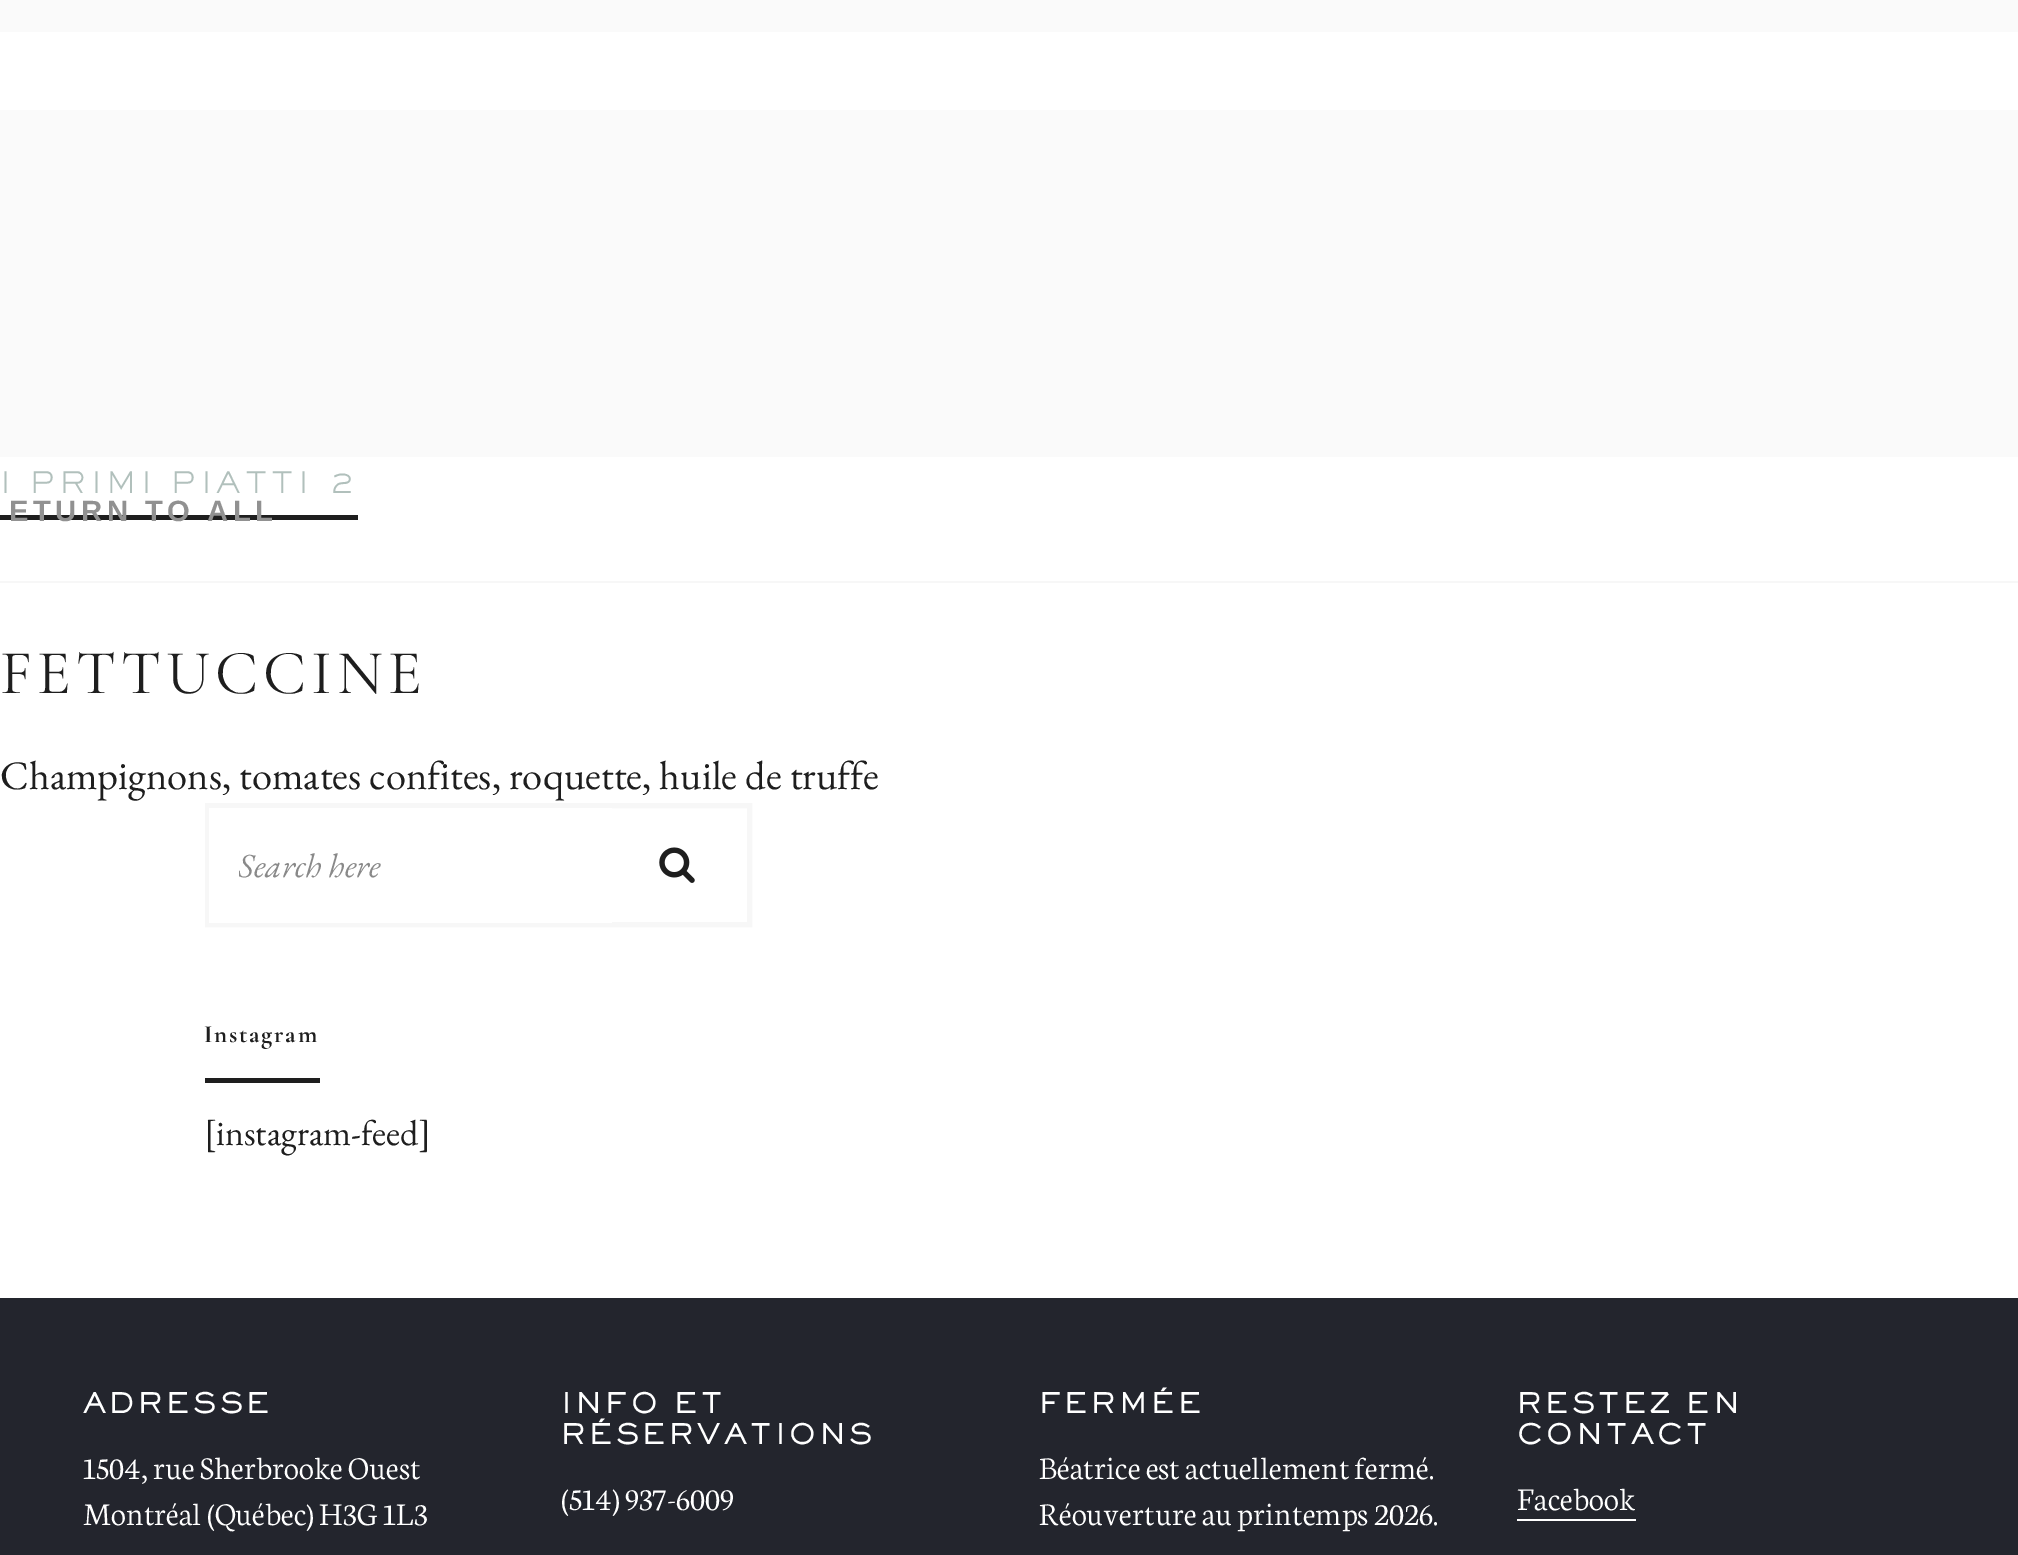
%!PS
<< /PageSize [2018 1555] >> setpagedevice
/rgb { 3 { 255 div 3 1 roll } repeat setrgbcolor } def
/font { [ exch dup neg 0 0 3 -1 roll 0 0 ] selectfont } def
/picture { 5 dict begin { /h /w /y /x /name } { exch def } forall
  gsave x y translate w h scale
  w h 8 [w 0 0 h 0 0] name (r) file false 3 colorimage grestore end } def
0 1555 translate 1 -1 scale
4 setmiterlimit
250 250 250 rgb
0 0 2018 1555 rectfill
[
  [0 32 2018 1266 255 255 255]
  [0 110 2018 347 250 250 250]
  [0 515 358 5 30 30 30]
  [0 581 2018 2 247 247 247]
] { aload pop rgb rectfill } forall
5 setlinewidth
207.5 805.5 542 119 rectstroke
255 255 255 rgb
209 808 403 115 rectfill
(img/1.rgb) 659 847 36 36 picture
[
  [205 1078 115 5 30 30 30]
  [0 1298 2018 257 35 37 45]
  [1517 1519 119 2 255 255 255]
] { aload pop rgb rectfill } forall
/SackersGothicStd-Light 29.25 font
177 192 188 rgb
0 493 moveto 4.4 0 (I PRIMI PIATTI 2) ashow
/LiberationSans-Bold 29.25 font
145 145 145 rgb
9 521 moveto 4.5 0 (ETURN TO ALL) ashow
/CormorantGaramond-Regular 63 font
30 30 30 rgb
0 693 moveto 5 0 (FETTUCCINE) ashow
/EBGaramond-Regular 40.5 font
0 789 moveto (Champignons, tomates confites, roquette, huile de truffe) show
gsave
239 844 344 43 rectclip
/EBGaramond-Italic 33.75 font
137 137 137 rgb
238 877 moveto (Search here) show
grestore
/CormorantGaramond-Bold 24.75 font
204 1042 moveto 1.75 0 (Instagram) ashow
/EBGaramond-Regular 36 font
204 1145 moveto ([instagram-feed]) show
/SackersGothicStd-Bold 27 font
255 255 255 rgb
83 1413 moveto 4 0 (ADRESSE) ashow
/Neuton-Light 33.75 font
83 1479 moveto (1504, rue Sherbrooke Ouest) show
83 1525 moveto (Montréal \(Québec\) H3G 1L3) show
/SackersGothicStd-Bold 27 font
561 1413 moveto 4 0 (INFO ET) ashow
561 1444 moveto 4 0 (RÉSERVATIONS) ashow
/Neuton-Light 33.75 font
561 1510 moveto (\(514\) 937-6009) show
/SackersGothicStd-Bold 27 font
1039 1413 moveto 4 0 (FERMÉE) ashow
/Neuton-Light 33.75 font
1039 1479 moveto (Béatrice est actuellement fermé.) show
1039 1525 moveto (Réouverture au printemps 2026.) show
/SackersGothicStd-Bold 27 font
1517 1413 moveto 4 0 (RESTEZ EN) ashow
1517 1444 moveto 4 0 (CONTACT) ashow
/Neuton-Light 33.75 font
1517 1510 moveto (Facebook) show
showpage
